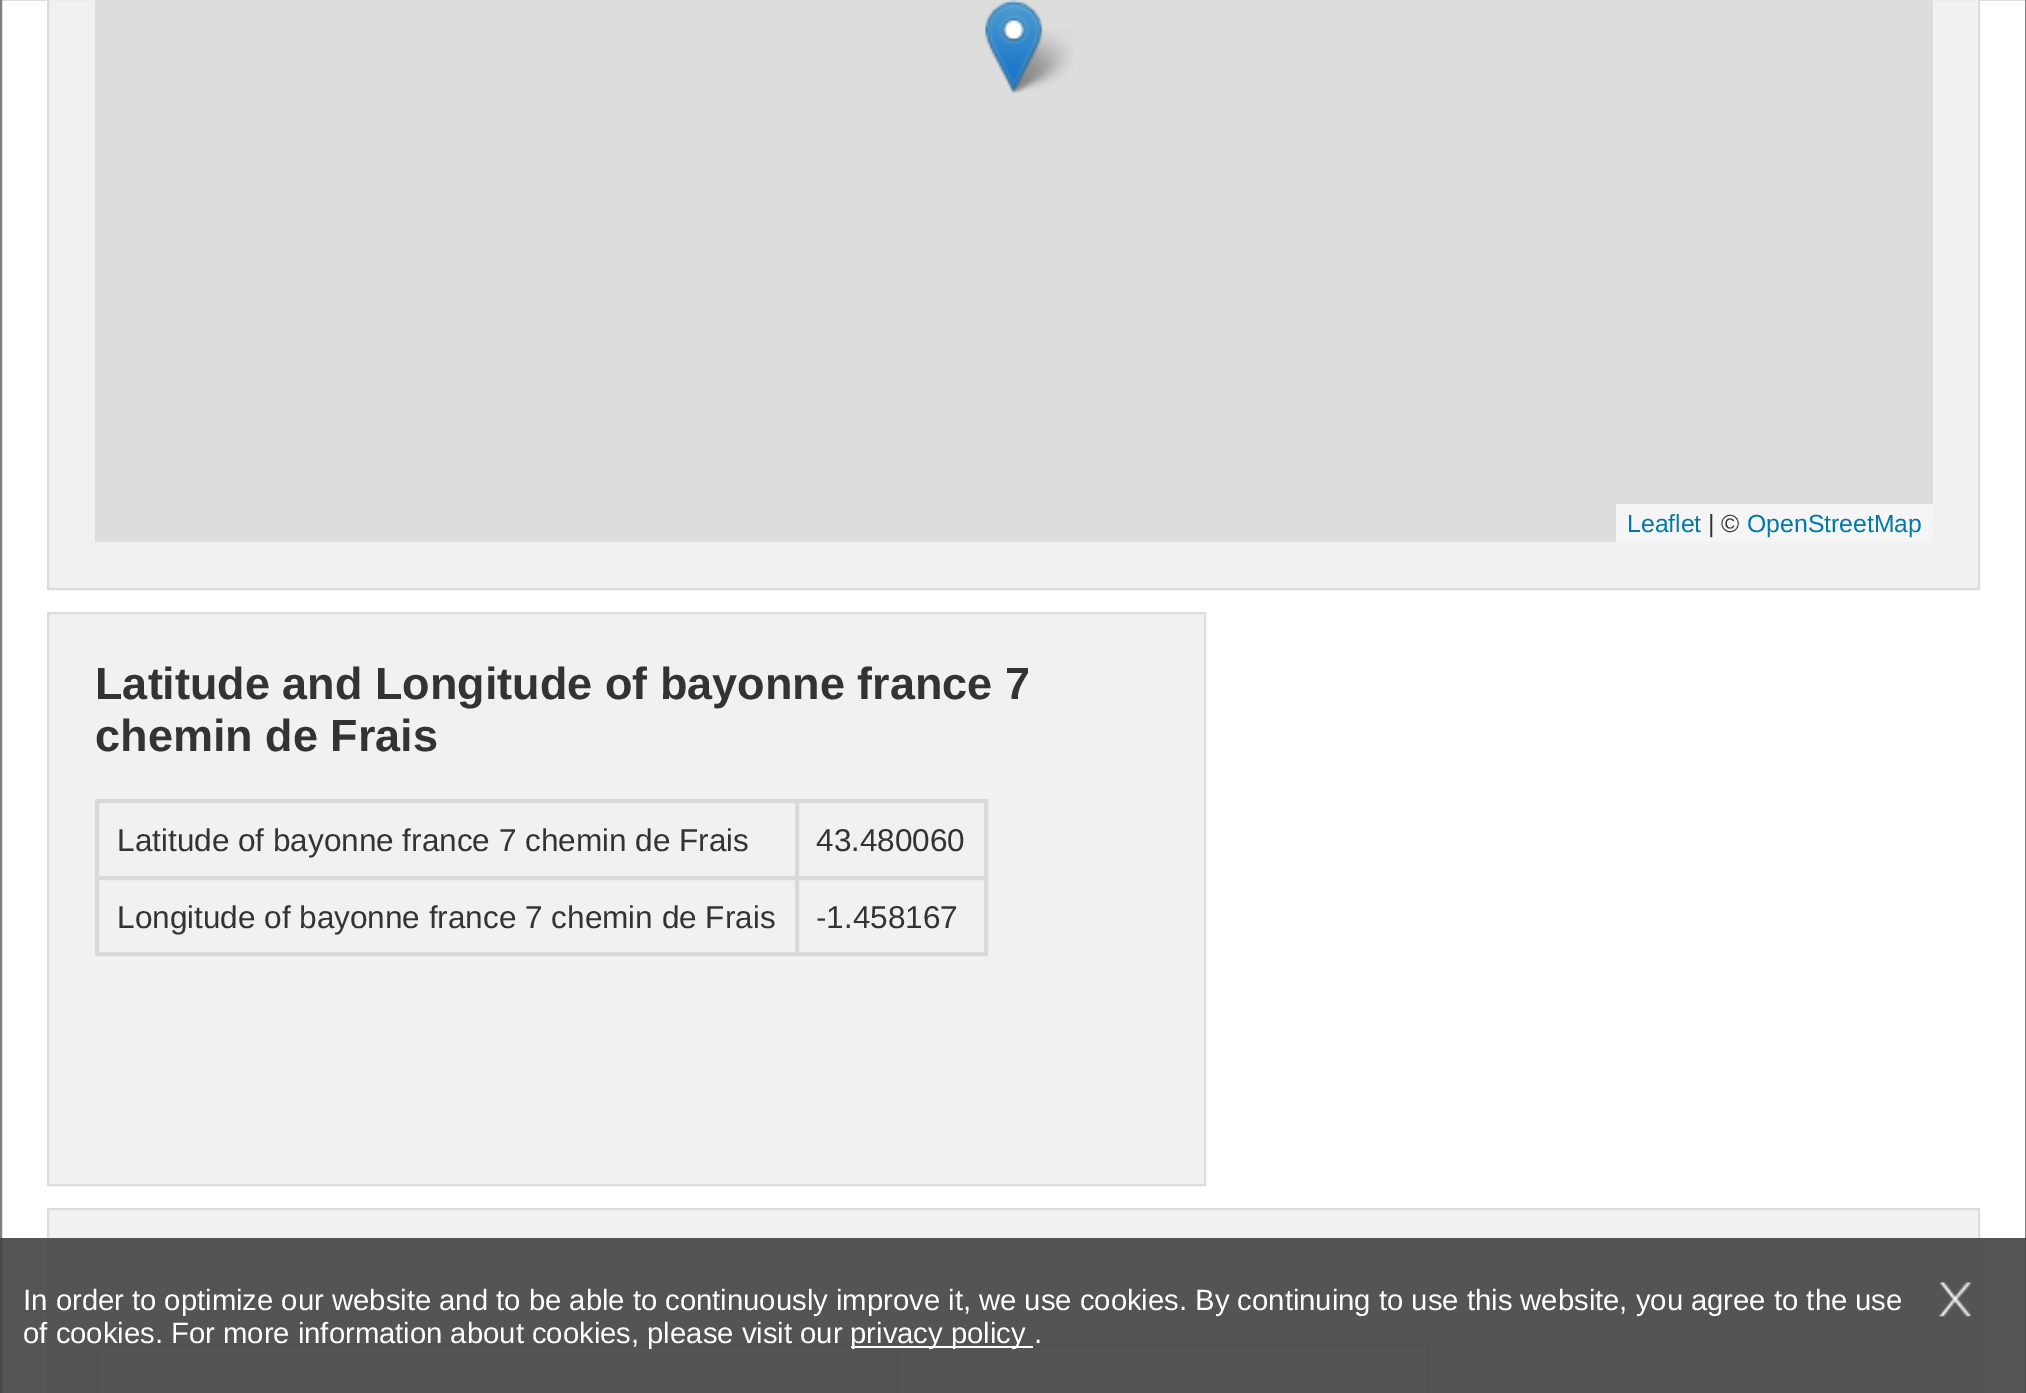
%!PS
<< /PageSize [2026 1393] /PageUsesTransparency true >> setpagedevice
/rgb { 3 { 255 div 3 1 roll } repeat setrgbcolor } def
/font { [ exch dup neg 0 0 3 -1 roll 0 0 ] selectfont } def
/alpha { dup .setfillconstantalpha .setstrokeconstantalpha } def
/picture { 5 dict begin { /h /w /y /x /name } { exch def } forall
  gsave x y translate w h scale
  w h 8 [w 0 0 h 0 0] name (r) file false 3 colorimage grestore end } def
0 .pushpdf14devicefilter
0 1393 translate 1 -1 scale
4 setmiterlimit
255 255 255 rgb
0 0 2026 1393 rectfill
128 128 128 rgb
2 setlinewidth
1 -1 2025 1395 rectstroke
241 241 241 rgb
48 -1 moveto 1979 -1 lineto 1979 589 lineto 48 589 lineto closepath gsave fill grestore
220 220 220 rgb
stroke
221 221 221 rgb
95 0 1838 542 rectfill
(img/2.rgb) 1006 29 67 64 picture
(img/1.rgb) 985 0 58 93 picture
245 245 245 rgb
1616 504 317 38 rectfill
241 241 241 rgb
48 613 moveto 1205 613 lineto 1205 1185 lineto 48 1185 lineto closepath gsave fill grestore
220 220 220 rgb
stroke
217 217 217 rgb
96 800 891 155 rectstroke
98 802 698 75 rectstroke
798 802 187 75 rectstroke
98 879 698 74 rectstroke
798 879 187 74 rectstroke
241 241 241 rgb
48 1209 moveto 1979 1209 lineto 1979 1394 lineto 48 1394 lineto closepath gsave fill grestore
220 220 220 rgb
stroke
217 217 217 rgb
96 1344 1332 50 rectstroke
98 1347 799 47 rectstroke
899 1347 527 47 rectstroke
0.9 alpha
67 67 67 rgb
0 1238 2026 155 rectfill
1 alpha
255 255 255 rgb
851 1346 182 2 rectfill
(img/3.rgb) 1939 1282 32 35 picture
/LiberationSans-Regular 24.75 font
0 120 168 rgb
1627 532 moveto (Leaflet) show
51 51 51 rgb
1708 532 moveto (| ©) show
0 120 168 rgb
1747 532 moveto (OpenStreetMap) show
/LiberationSans-Bold 45 font
51 51 51 rgb
95 699 moveto (Latitude and Longitude of bayonne france 7) show
95 751 moveto (chemin de Frais) show
/LiberationSans-Regular 31.5 font
[
  [(Latitude of bayonne france 7 chemin de Frais) 117 851]
  [(43.480060) 816 851]
  [(Longitude of bayonne france 7 chemin de Frais) 117 928]
  [(-1.458167) 816 928]
] { aload pop moveto show } forall
/LiberationSans-Regular 29.25 font
255 255 255 rgb
[
  [(In order to optimize our website and to be able to continuously improve it, we use cookies. By continuing to use this website, you agree to the use) 23 1310]
  [(of cookies. For more information about cookies, please visit our) 23 1343]
  [(privacy policy .) 850 1343]
] { aload pop moveto show } forall
.poppdf14devicefilter showpage
